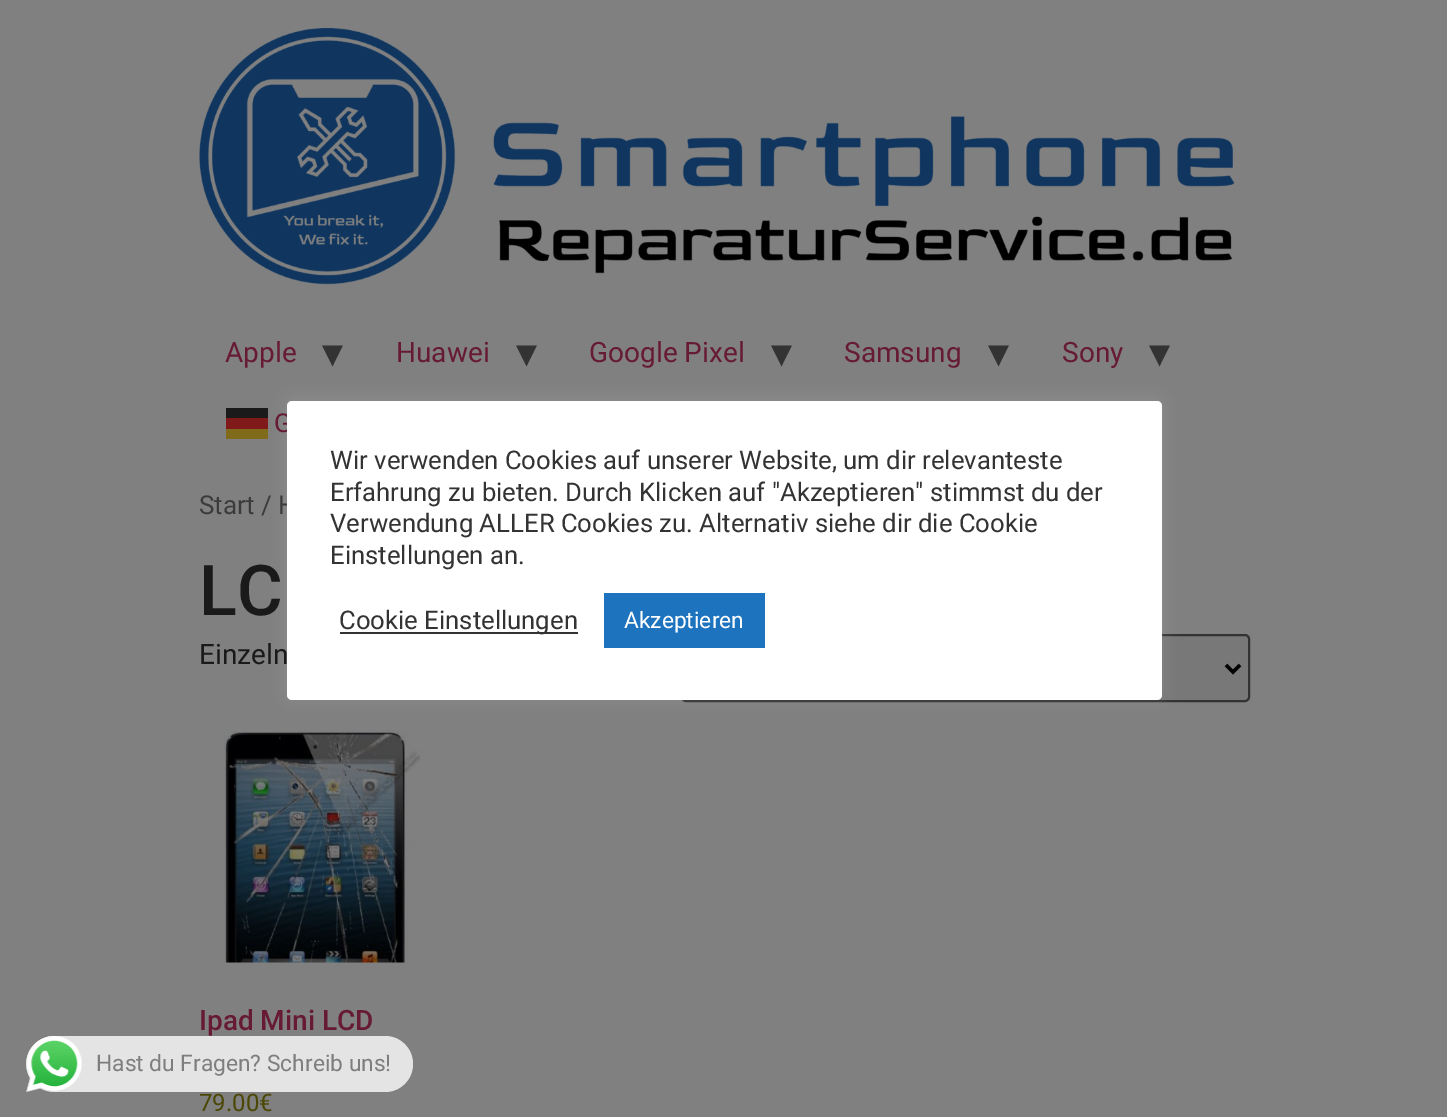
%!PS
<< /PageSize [1447 1117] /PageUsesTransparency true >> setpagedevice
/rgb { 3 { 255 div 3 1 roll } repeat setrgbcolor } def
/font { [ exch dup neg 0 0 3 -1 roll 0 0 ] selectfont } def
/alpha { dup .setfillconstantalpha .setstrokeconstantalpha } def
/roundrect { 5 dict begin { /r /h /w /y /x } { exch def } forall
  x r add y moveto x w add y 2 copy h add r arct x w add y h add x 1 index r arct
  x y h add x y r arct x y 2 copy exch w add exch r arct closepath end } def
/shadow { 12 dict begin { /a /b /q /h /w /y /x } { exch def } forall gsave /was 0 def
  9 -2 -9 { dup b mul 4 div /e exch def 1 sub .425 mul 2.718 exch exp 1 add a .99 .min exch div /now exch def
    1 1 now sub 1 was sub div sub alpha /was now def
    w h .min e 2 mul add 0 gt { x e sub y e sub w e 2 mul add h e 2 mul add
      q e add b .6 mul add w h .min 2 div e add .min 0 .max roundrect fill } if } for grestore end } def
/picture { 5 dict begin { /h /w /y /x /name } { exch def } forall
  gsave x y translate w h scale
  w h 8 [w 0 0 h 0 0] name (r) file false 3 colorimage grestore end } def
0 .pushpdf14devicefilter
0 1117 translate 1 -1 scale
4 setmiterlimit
128 128 128 rgb
0 0 1447 1117 rectfill
(img/1.rgb) 199 28 1036 257 picture
[
  [226 408 42 10 26 26 26]
  [226 418 42 11 128 26 26]
  [226 429 42 10 128 107 26]
] { aload pop rgb rectfill } forall
120 120 120 rgb
682 635 567 66 4 roundrect gsave fill grestore
51 51 51 rgb
2 setlinewidth
stroke
0 0 0 rgb
3.5 setlinewidth
1226 665 moveto 1233 672 lineto 1240 665 lineto stroke
(img/2.rgb) 224 730 197 233 picture
172 171 171 rgb
287 399 875 299 5 9 0.3 shadow
228 228 228 rgb
26 1036 387 56 28 roundrect fill
(img/3.rgb) 26 1036 56 56 picture
/Roboto-Regular 28 font
102 26 51 rgb
225 362 moveto (Apple) show
/DejaVuSans-Regular 42 font
51 51 51 rgb
322 367 moveto (▾) show
/Roboto-Regular 28 font
102 26 51 rgb
396 362 moveto (Huawei) show
/DejaVuSans-Regular 42 font
51 51 51 rgb
516 367 moveto (▾) show
/Roboto-Regular 28 font
102 26 51 rgb
589 362 moveto (Google Pixel) show
/DejaVuSans-Regular 42 font
51 51 51 rgb
771 367 moveto (▾) show
/Roboto-Regular 28 font
102 26 51 rgb
844 362 moveto (Samsung) show
/DejaVuSans-Regular 42 font
51 51 51 rgb
988 367 moveto (▾) show
/Roboto-Regular 28 font
102 26 51 rgb
1062 362 moveto (Sony) show
/DejaVuSans-Regular 42 font
51 51 51 rgb
1149 367 moveto (▾) show
/Roboto-Regular 26 font
102 26 51 rgb
274 432 moveto (G) show
59 59 59 rgb
199 514 moveto (Start / H) show
/Roboto-Medium 70 font
26 26 26 rgb
199 615 moveto (LC) show
/Roboto-Regular 28 font
199 664 moveto (Einzeln) show
/Roboto-Medium 28 font
102 26 51 rgb
199 1030 moveto (Ipad Mini LCD) show
/Roboto-Regular 24 font
75 71 5 rgb
199 1111 moveto (79.00€) show
255 255 255 rgb
287 401 875 299 5 roundrect fill
/Roboto-Regular 25.7 font
51 51 51 rgb
[
  [(Wir verwenden Cookies auf unserer Website, um dir relevanteste) 330 469]
  [(Erfahrung zu bieten. Durch Klicken auf "Akzeptieren" stimmst du der) 330 501]
  [(Verwendung ALLER Cookies zu. Alternativ siehe dir die Cookie) 330 532]
  [(Einstellungen an.) 330 564]
] { aload pop moveto show } forall
340 632 238 2 rectfill
339 629 moveto (Cookie Einstellungen) show
30 115 190 rgb
604 593 161 55 rectfill
/Roboto-Regular 22.75 font
255 255 255 rgb
624 628 moveto (Akzeptieren) show
127 125 125 rgb
96 1071 moveto (Hast du Fragen? Schreib uns!) show
.poppdf14devicefilter showpage
